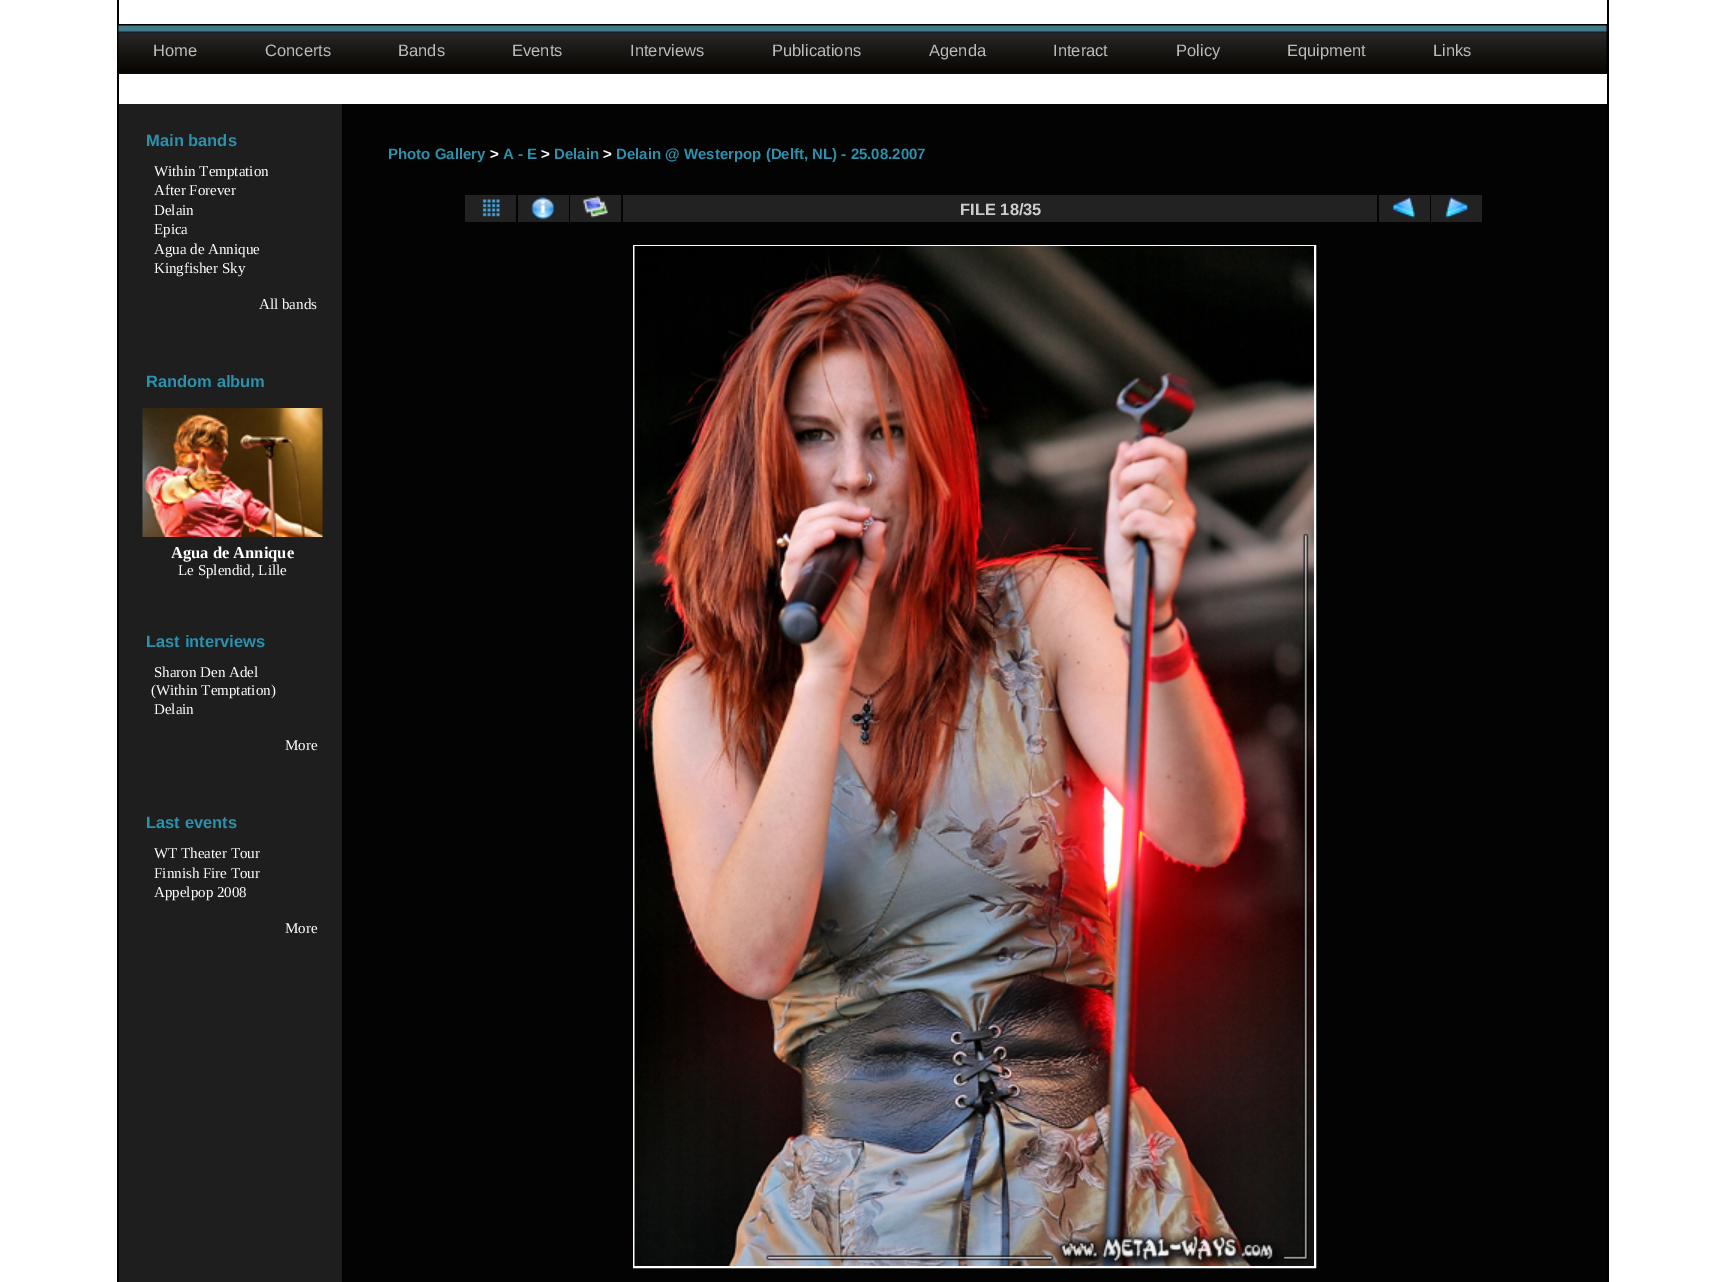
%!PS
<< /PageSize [1724 1282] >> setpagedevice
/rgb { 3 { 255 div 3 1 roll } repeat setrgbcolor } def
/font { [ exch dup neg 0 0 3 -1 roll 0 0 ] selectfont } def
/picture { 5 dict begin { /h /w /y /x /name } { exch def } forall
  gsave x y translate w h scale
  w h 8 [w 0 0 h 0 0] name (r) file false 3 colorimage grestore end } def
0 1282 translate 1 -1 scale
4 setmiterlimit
255 255 255 rgb
0 0 1724 1282 rectfill
[
  [1607 0 2 1282 0 0 0]
  [117 0 2 1282 0 0 0]
  [119 24 1488 50 0 0 0]
] { aload pop rgb rectfill } forall
(img/1.rgb) 118 25 1489 49 picture
30 30 30 rgb
119 104 223 1178 rectfill
(img/2.rgb) 142 408 181 129 picture
3 3 3 rgb
342 104 1265 1178 rectfill
34 34 34 rgb
465 195 51 27 rectfill
(img/3.rgb) 482 199 18 18 picture
518 195 51 27 rectfill
(img/4.rgb) 531 196 24 24 picture
570 195 51 27 rectfill
(img/5.rgb) 583 196 25 22 picture
623 195 754 27 rectfill
1379 195 51 27 rectfill
(img/6.rgb) 1392 196 23 22 picture
1431 195 51 27 rectfill
(img/7.rgb) 1445 196 24 22 picture
255 255 255 rgb
2 setlinewidth
634 246 681 1021 rectstroke
(img/8.rgb) 634 246 680 1020 picture
/LiberationSans-Regular 16.5 font
187 187 187 rgb
[
  [(Home) 153 56]
  [(Concerts) 265 56]
  [(Bands) 398 56]
  [(Events) 512 56]
  [(Interviews) 630 56]
  [(Publications) 772 56]
  [(Agenda) 929 56]
  [(Interact) 1053 56]
  [(Policy) 1176 56]
  [(Equipment) 1287 56]
  [(Links) 1433 56]
] { aload pop moveto show } forall
/LiberationSans-Bold 16.5 font
43 145 172 rgb
146 146 moveto (Main bands) show
/LiberationSerif-Regular 15 font
255 255 255 rgb
[
  [(Within Temptation) 154 176]
  [(After Forever) 154 195]
  [(Delain) 154 215]
  [(Epica) 154 234]
  [(Agua de Annique) 154 254]
  [(Kingfisher Sky) 154 273]
  [(All bands) 259 309]
] { aload pop moveto show } forall
/LiberationSans-Bold 16.5 font
43 145 172 rgb
146 387 moveto (Random album) show
/LiberationSerif-Bold 16.5 font
255 255 255 rgb
171 558 moveto (Agua de Annique) show
/LiberationSerif-Regular 15 font
178 575 moveto (Le Splendid, Lille) show
/LiberationSans-Bold 16.5 font
43 145 172 rgb
146 647 moveto (Last interviews) show
/LiberationSerif-Regular 15 font
255 255 255 rgb
[
  [(Sharon Den Adel) 154 677]
  [(\(Within Temptation\)) 151 695]
  [(Delain) 154 714]
  [(More) 285 750]
] { aload pop moveto show } forall
/LiberationSans-Bold 16.5 font
43 145 172 rgb
146 828 moveto (Last events) show
/LiberationSerif-Regular 15 font
255 255 255 rgb
[
  [(WT Theater Tour) 154 858]
  [(Finnish Fire Tour) 154 878]
  [(Appelpop 2008) 154 897]
  [(More) 285 933]
] { aload pop moveto show } forall
/LiberationSans-Bold 15 font
43 145 172 rgb
388 159 moveto (Photo Gallery) show
255 255 255 rgb
490 159 moveto (>) show
43 145 172 rgb
503 159 moveto (A - E) show
255 255 255 rgb
541 159 moveto (>) show
43 145 172 rgb
554 159 moveto (Delain) show
255 255 255 rgb
603 159 moveto (>) show
43 145 172 rgb
616 159 moveto (Delain @ Westerpop \(Delft, NL\) - 25.08.2007) show
/LiberationSans-Bold 16.5 font
204 204 204 rgb
960 215 moveto (FILE 18/35) show
showpage
